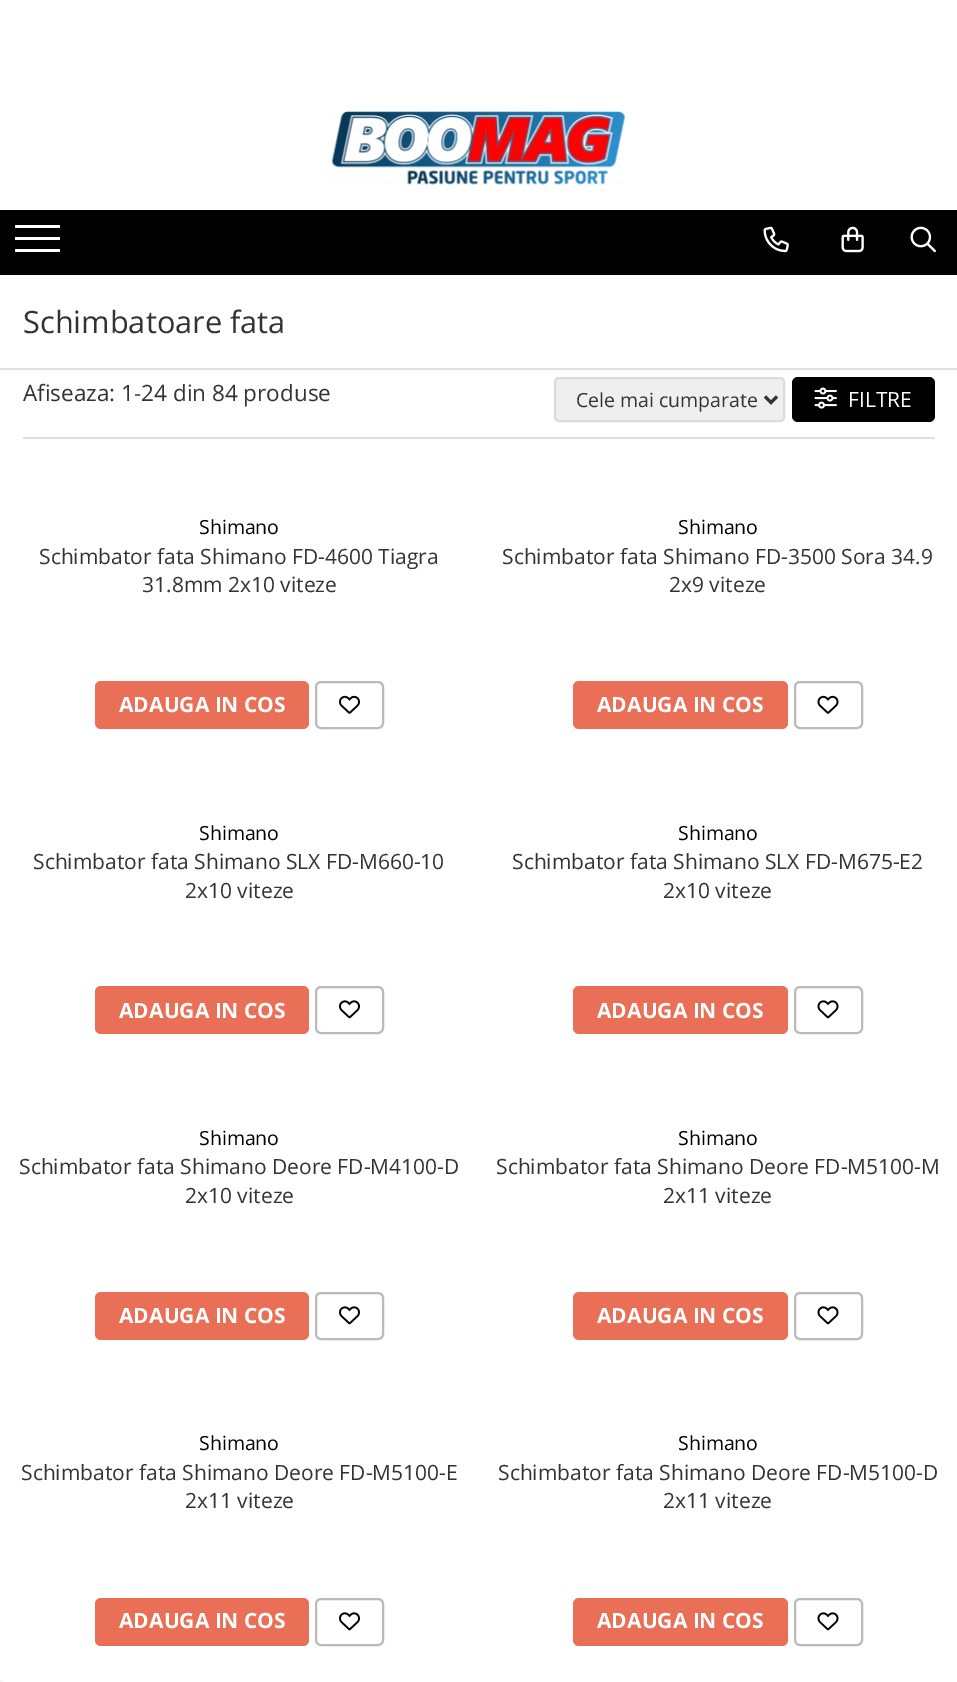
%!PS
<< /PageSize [957 1682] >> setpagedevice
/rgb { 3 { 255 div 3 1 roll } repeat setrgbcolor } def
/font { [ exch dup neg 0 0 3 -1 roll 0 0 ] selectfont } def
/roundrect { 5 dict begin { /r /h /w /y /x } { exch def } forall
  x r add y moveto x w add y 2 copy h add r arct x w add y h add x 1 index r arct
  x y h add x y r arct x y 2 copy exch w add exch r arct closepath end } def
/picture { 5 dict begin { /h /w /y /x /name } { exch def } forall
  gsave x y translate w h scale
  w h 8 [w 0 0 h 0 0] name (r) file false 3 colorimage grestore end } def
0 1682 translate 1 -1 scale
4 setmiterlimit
255 255 255 rgb
0 0 957 1682 rectfill
(img/1.rgb) 331 111 295 74 picture
[
  [0 210 957 65 0 0 0]
  [15 237 45 3 255 255 255]
  [15 225 45 3 255 255 255]
  [15 249 45 3 255 255 255]
] { aload pop rgb rectfill } forall
(img/2.rgb) 763 226 26 27 picture
(img/3.rgb) 841 226 23 27 picture
(img/4.rgb) 910 226 26 27 picture
223 223 223 rgb
0 368 957 2 rectfill
23 437 912 2 rectfill
239 239 239 rgb
555 378 229 43 4 roundrect gsave fill grestore
219 219 219 rgb
2 setlinewidth
stroke
51 51 51 rgb
3 setlinewidth
765 396.5 moveto 771 402.5 lineto 777 396.5 lineto stroke
0 0 0 rgb
792 377 143 45 6 roundrect fill
(img/5.rgb) 814 387 23 22 picture
233 111 86 rgb
95 681 214 48 6 roundrect fill
187 187 187 rgb
2 setlinewidth
316 682 67 46 5 roundrect stroke
(img/6.rgb) 339 695 21 19 picture
233 111 86 rgb
573 681 215 48 6 roundrect fill
187 187 187 rgb
795 682 67 46 5 roundrect stroke
(img/7.rgb) 817 695 22 19 picture
233 111 86 rgb
95 986 214 48 6 roundrect fill
187 187 187 rgb
316 987 67 46 5 roundrect stroke
(img/8.rgb) 339 1000 21 19 picture
233 111 86 rgb
573 986 215 48 6 roundrect fill
187 187 187 rgb
795 987 67 46 5 roundrect stroke
(img/9.rgb) 817 1000 22 19 picture
233 111 86 rgb
95 1292 214 48 6 roundrect fill
187 187 187 rgb
316 1293 67 46 5 roundrect stroke
(img/8.rgb) 339 1306 21 19 picture
233 111 86 rgb
573 1292 215 48 6 roundrect fill
187 187 187 rgb
795 1293 67 46 5 roundrect stroke
(img/9.rgb) 817 1306 22 19 picture
233 111 86 rgb
95 1598 214 48 6 roundrect fill
187 187 187 rgb
316 1599 67 46 5 roundrect stroke
(img/8.rgb) 339 1612 21 19 picture
233 111 86 rgb
573 1598 215 48 6 roundrect fill
187 187 187 rgb
795 1599 67 46 5 roundrect stroke
(img/9.rgb) 817 1612 22 19 picture
245 245 245 rgb
0 1680 3 2 rectfill
/OpenSans-Regular 30.75 font
51 51 51 rgb
23 333 moveto (Schimbatoare fata) show
/OpenSans-Regular 22.5 font
23 401 moveto (Afiseaza: 1-24 din 84 produse) show
/OpenSans-Regular 19.5 font
576 407 moveto (Cele mai cumparate) show
/OpenSans-Regular 21 font
255 255 255 rgb
848 407 moveto (FILTRE) show
/OpenSans-Regular 19.5 font
0 0 0 rgb
199 534 moveto (Shimano) show
/OpenSans-Regular 21 font
51 51 51 rgb
39 564 moveto (Schimbator fata Shimano FD-4600 Tiagra) show
142 592 moveto (31.8mm 2x10 viteze) show
/OpenSans-Bold 21 font
255 255 255 rgb
119 712 moveto (ADAUGA IN COS) show
/OpenSans-Regular 19.5 font
0 0 0 rgb
678 534 moveto (Shimano) show
/OpenSans-Regular 21 font
51 51 51 rgb
502 564 moveto (Schimbator fata Shimano FD-3500 Sora 34.9) show
669 592 moveto (2x9 viteze) show
/OpenSans-Bold 21 font
255 255 255 rgb
597 712 moveto (ADAUGA IN COS) show
/OpenSans-Regular 19.5 font
0 0 0 rgb
199 840 moveto (Shimano) show
/OpenSans-Regular 21 font
51 51 51 rgb
33 869 moveto (Schimbator fata Shimano SLX FD-M660-10) show
185 898 moveto (2x10 viteze) show
/OpenSans-Bold 21 font
255 255 255 rgb
119 1018 moveto (ADAUGA IN COS) show
/OpenSans-Regular 19.5 font
0 0 0 rgb
678 840 moveto (Shimano) show
/OpenSans-Regular 21 font
51 51 51 rgb
512 869 moveto (Schimbator fata Shimano SLX FD-M675-E2) show
663 898 moveto (2x10 viteze) show
/OpenSans-Bold 21 font
255 255 255 rgb
597 1018 moveto (ADAUGA IN COS) show
/OpenSans-Regular 19.5 font
0 0 0 rgb
199 1145 moveto (Shimano) show
/OpenSans-Regular 21 font
51 51 51 rgb
19 1174 moveto (Schimbator fata Shimano Deore FD-M4100-D) show
185 1203 moveto (2x10 viteze) show
/OpenSans-Bold 21 font
255 255 255 rgb
119 1323 moveto (ADAUGA IN COS) show
/OpenSans-Regular 19.5 font
0 0 0 rgb
678 1145 moveto (Shimano) show
/OpenSans-Regular 21 font
51 51 51 rgb
496 1174 moveto (Schimbator fata Shimano Deore FD-M5100-M) show
663 1203 moveto (2x11 viteze) show
/OpenSans-Bold 21 font
255 255 255 rgb
597 1323 moveto (ADAUGA IN COS) show
/OpenSans-Regular 19.5 font
0 0 0 rgb
199 1450 moveto (Shimano) show
/OpenSans-Regular 21 font
51 51 51 rgb
21 1480 moveto (Schimbator fata Shimano Deore FD-M5100-E) show
185 1508 moveto (2x11 viteze) show
/OpenSans-Bold 21 font
255 255 255 rgb
119 1628 moveto (ADAUGA IN COS) show
/OpenSans-Regular 19.5 font
0 0 0 rgb
678 1450 moveto (Shimano) show
/OpenSans-Regular 21 font
51 51 51 rgb
498 1480 moveto (Schimbator fata Shimano Deore FD-M5100-D) show
663 1508 moveto (2x11 viteze) show
/OpenSans-Bold 21 font
255 255 255 rgb
597 1628 moveto (ADAUGA IN COS) show
showpage
